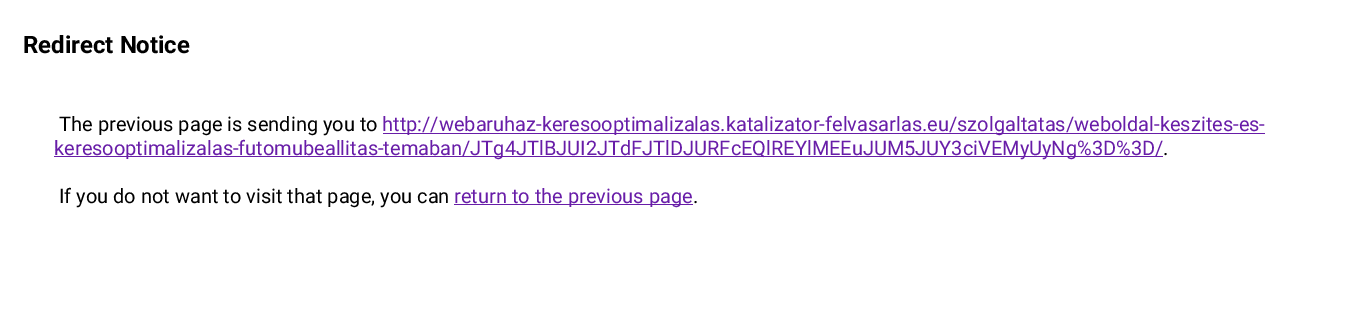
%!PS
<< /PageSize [1361 318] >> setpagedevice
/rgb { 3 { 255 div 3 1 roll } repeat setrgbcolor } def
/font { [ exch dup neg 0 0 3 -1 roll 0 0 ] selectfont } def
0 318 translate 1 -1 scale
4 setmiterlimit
255 255 255 rgb
0 0 1361 318 rectfill
[
  [383 133 882 1 104 29 168]
  [54 156 1109 1 104 29 168]
  [454 204 239 1 104 29 168]
] { aload pop rgb rectfill } forall
/Roboto-Bold 24 font
0 0 0 rgb
23 53 moveto (Redirect Notice) show
/Roboto-Regular 20 font
59 131 moveto (The previous page is sending you to) show
104 29 168 rgb
382 131 moveto (http://webaruhaz-keresooptimalizalas.katalizator-felvasarlas.eu/szolgaltatas/weboldal-keszites-es-) show
54 155 moveto (keresooptimalizalas-futomubeallitas-temaban/JTg4JTlBJUI2JTdFJTlDJURFcEQlREYlMEEuJUM5JUY3ciVEMyUyNg%3D%3D/) show
0 0 0 rgb
1163 155 moveto (.) show
59 203 moveto (If you do not want to visit that page, you can) show
104 29 168 rgb
454 203 moveto (return to the previous page) show
0 0 0 rgb
693 203 moveto (.) show
showpage
